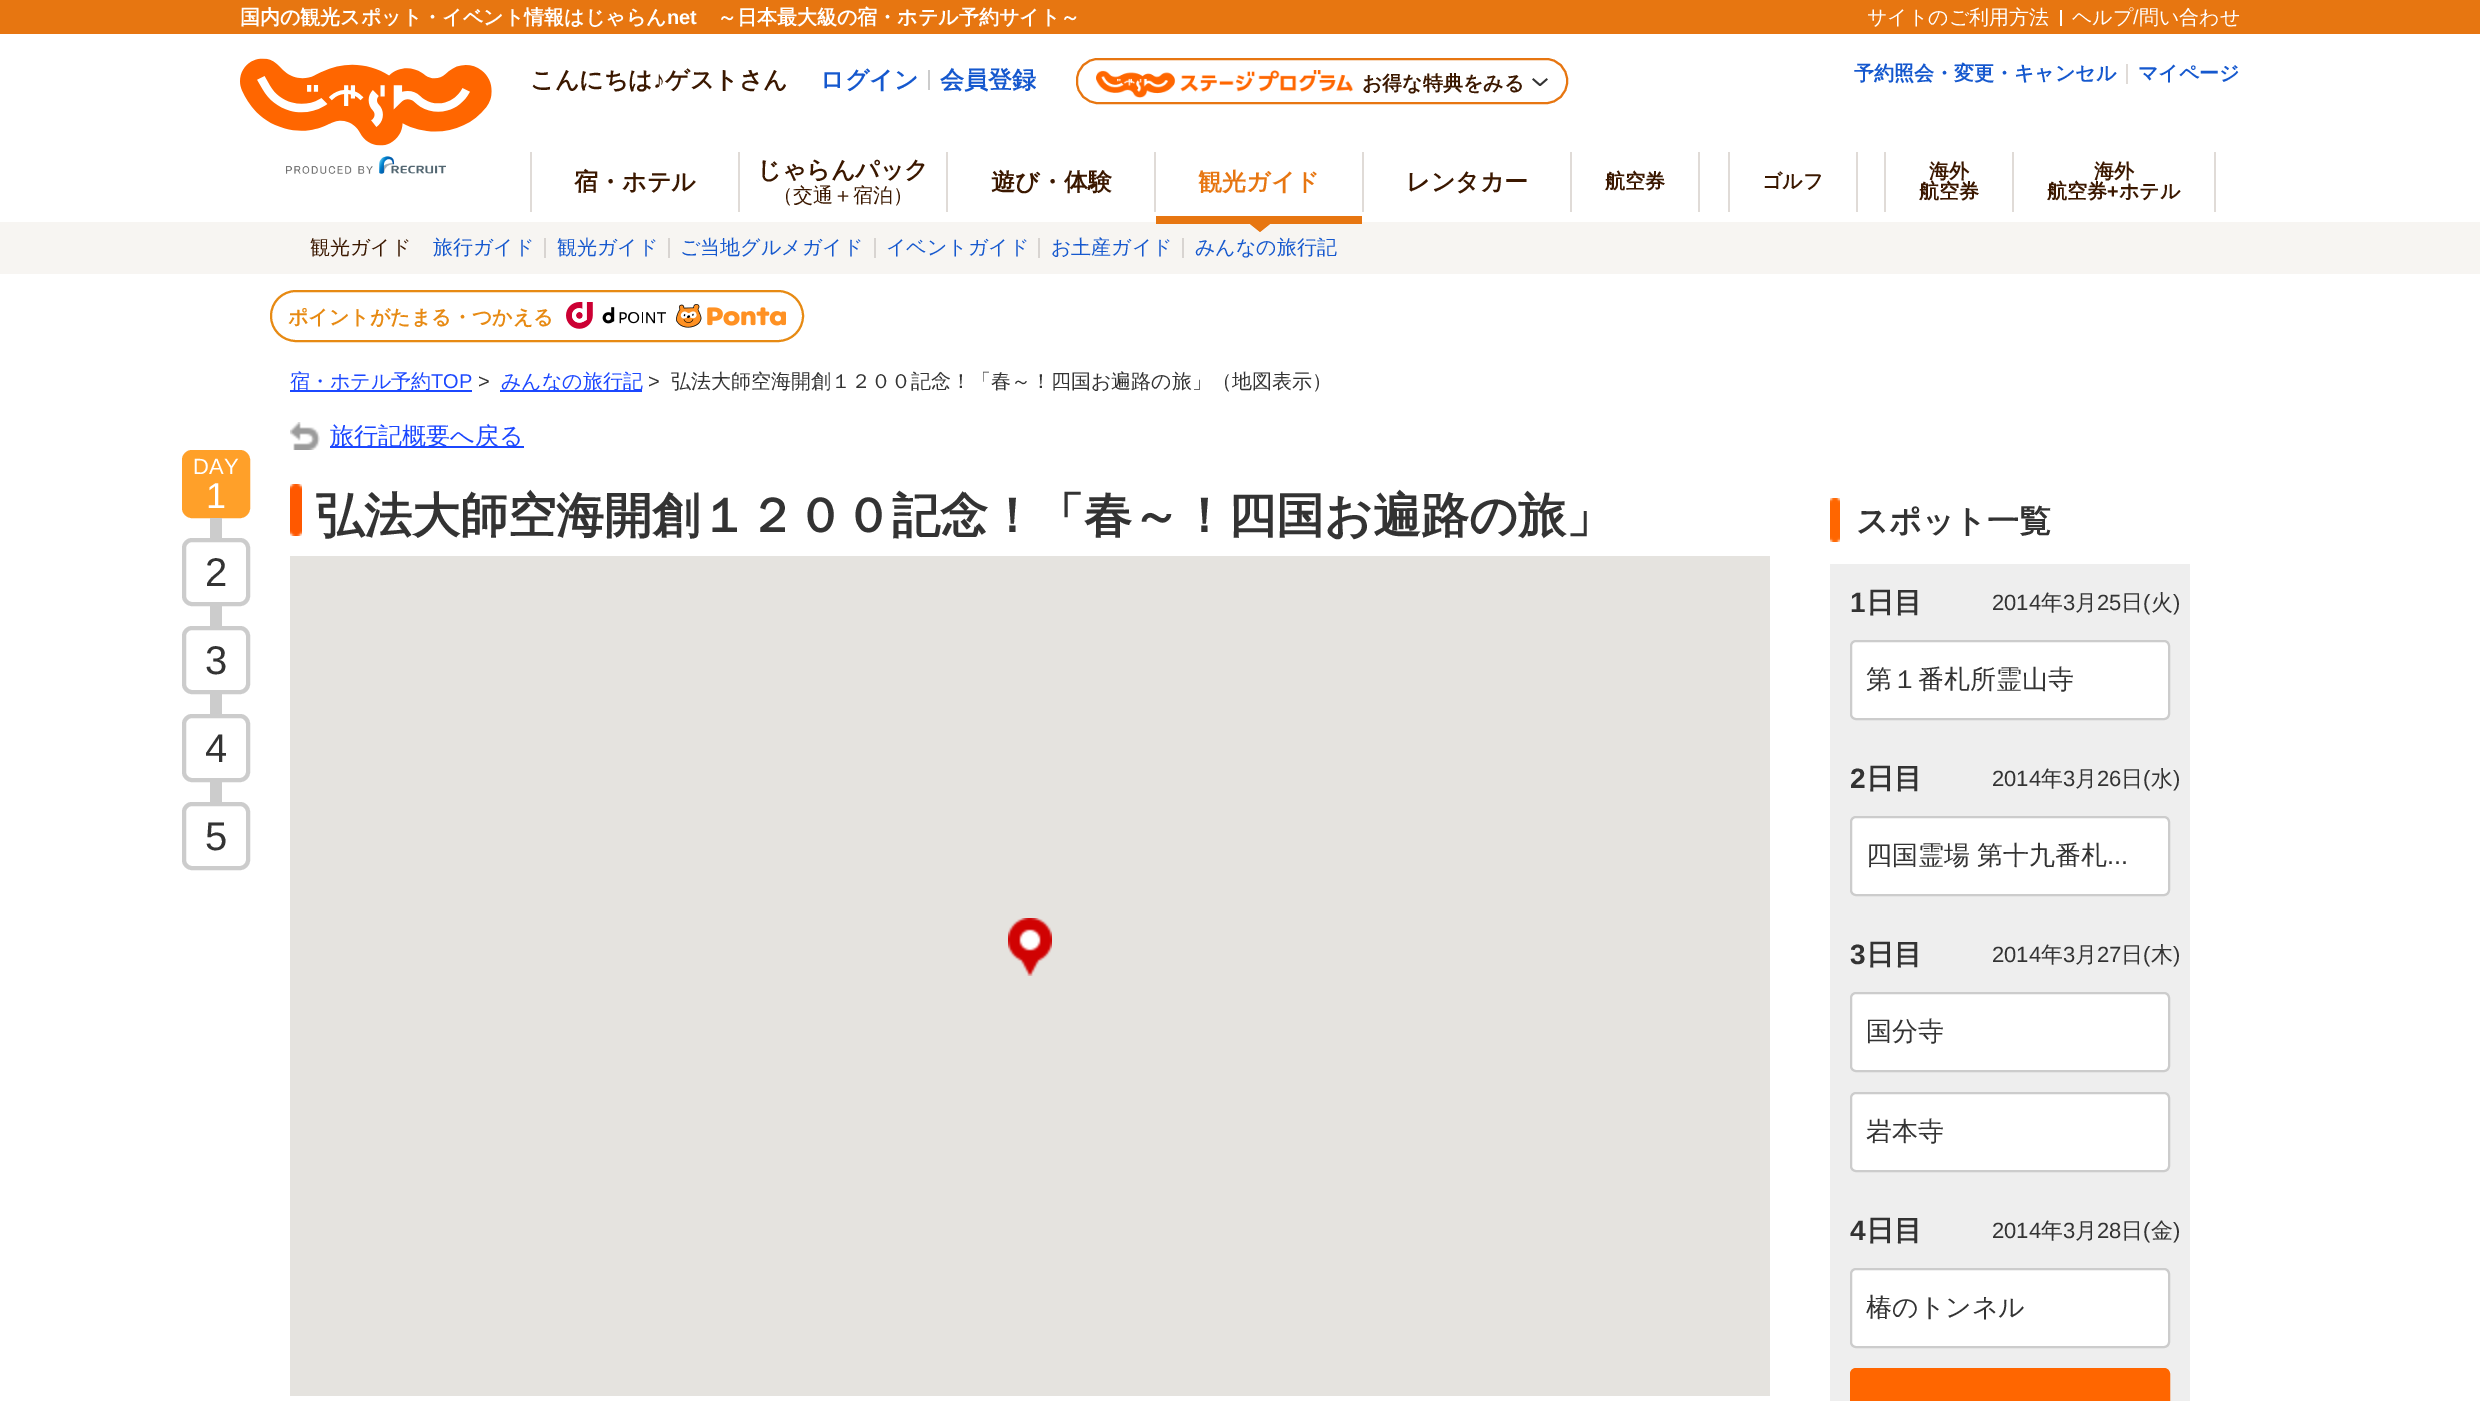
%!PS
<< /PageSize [2480 1401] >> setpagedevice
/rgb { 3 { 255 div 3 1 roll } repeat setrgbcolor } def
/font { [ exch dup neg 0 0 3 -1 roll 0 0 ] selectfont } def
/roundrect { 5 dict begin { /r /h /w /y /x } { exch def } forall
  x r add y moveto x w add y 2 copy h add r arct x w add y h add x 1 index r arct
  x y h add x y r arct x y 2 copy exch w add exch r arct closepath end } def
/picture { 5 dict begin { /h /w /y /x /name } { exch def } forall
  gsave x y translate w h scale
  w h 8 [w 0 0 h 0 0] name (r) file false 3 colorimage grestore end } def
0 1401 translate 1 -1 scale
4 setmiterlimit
255 255 255 rgb
0 0 2480 1401 rectfill
231 118 17 rgb
0 0 2480 34 rectfill
255 255 255 rgb
2060 10 2 16 rectfill
(img/1.rgb) 240 58 252 116 picture
204 204 204 rgb
928 70 2 20 rectfill
231 118 17 rgb
2 setlinewidth
1077 59 490 44 21 roundrect stroke
(img/2.rgb) 1096 70 258 28 picture
(img/3.rgb) 1532 78 16 8 picture
[
  [2126 64 2 20 224 219 215]
  [738 152 2 60 224 219 215]
  [530 152 2 60 224 219 215]
  [946 152 2 60 224 219 215]
  [1154 152 2 60 224 219 215]
  [1362 152 2 60 224 219 215]
  [0 222 2480 52 247 245 242]
  [1156 216 206 8 231 118 17]
] { aload pop rgb rectfill } forall
1250 224 moveto 1270 224 lineto 1260 232 lineto closepath fill
[
  [1570 152 2 60 224 219 215]
  [1698 152 2 60 224 219 215]
  [1856 152 2 60 224 219 215]
  [1728 152 2 60 224 219 215]
  [2012 152 2 60 224 219 215]
  [1884 152 2 60 224 219 215]
  [2214 152 2 60 224 219 215]
  [544 238 2 20 216 212 209]
  [668 238 2 20 216 212 209]
  [874 238 2 20 216 212 209]
  [1038 238 2 20 216 212 209]
  [1182 238 2 20 216 212 209]
] { aload pop rgb rectfill } forall
231 138 19 rgb
271 291 532 50 25 roundrect stroke
(img/4.rgb) 566 302 100 27 picture
(img/5.rgb) 676 304 110 24 picture
27 71 255 rgb
290 390 182 2 rectfill
500 390 142 2 rectfill
(img/6.rgb) 290 422 30 28 picture
330 446 194 2 rectfill
255 160 41 rgb
184 452 64 64 8 roundrect gsave fill grestore
4 setlinewidth
stroke
204 204 204 rgb
210 518 12 20 rectfill
184 540 64 64 8 roundrect stroke
210 606 12 20 rectfill
184 628 64 64 8 roundrect stroke
210 694 12 20 rectfill
184 716 64 64 8 roundrect stroke
210 782 12 20 rectfill
184 804 64 64 8 roundrect stroke
(img/7.rgb) 290 484 12 52 picture
229 227 223 rgb
290 556 1480 840 rectfill
(img/8.rgb) 1008 918 44 58 picture
(img/9.rgb) 1830 498 10 44 picture
238 238 238 rgb
1830 564 360 837 rectfill
255 255 255 rgb
1851 641 318 78 5 roundrect gsave fill grestore
204 204 204 rgb
2 setlinewidth
stroke
255 255 255 rgb
1851 817 318 78 5 roundrect gsave fill grestore
204 204 204 rgb
stroke
255 255 255 rgb
1851 993 318 78 5 roundrect gsave fill grestore
204 204 204 rgb
stroke
255 255 255 rgb
1851 1093 318 78 5 roundrect gsave fill grestore
204 204 204 rgb
stroke
255 255 255 rgb
1851 1269 318 78 5 roundrect gsave fill grestore
204 204 204 rgb
stroke
255 102 0 rgb
1851 1369 318 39 5 roundrect gsave fill grestore
stroke
/WenQuanYiZenHei-Bold 20 font
255 255 255 rgb
240 24 moveto (国内の観光スポット・イベント情報はじゃらん) show
/LiberationSans-Bold 20 font
667 24 moveto (net) show
/WenQuanYiZenHei-Bold 20 font
717 24 moveto (～日本最大級の宿・ホテル予約サイト～) show
/WenQuanYiZenHei-Medium 20 font
1867 24 moveto (サイトのご利用方法) show
2072 24 moveto (ヘルプ) show
/LiberationSans-Regular 20 font
2133 24 moveto (/) show
/WenQuanYiZenHei-Medium 20 font
2139 24 moveto (問い合わせ) show
/WenQuanYiZenHei-Bold 24 font
59 24 0 rgb
530 88 moveto (こんにちは) show
/LiberationSans-Bold 24 font
653 88 moveto (♪) show
/WenQuanYiZenHei-Bold 24 font
665 88 moveto (ゲストさん) show
21 88 206 rgb
820 88 moveto (ログイン) show
940 88 moveto (会員登録) show
/WenQuanYiZenHei-Bold 20 font
59 24 0 rgb
1362 90 moveto (お得な特典をみる) show
21 88 206 rgb
1854 80 moveto (予約照会・変更・キャンセル) show
2138 80 moveto (マイページ) show
/WenQuanYiZenHei-Bold 24 font
59 24 0 rgb
574 190 moveto (宿・ホテル) show
757 178 moveto (じゃらんパック) show
/WenQuanYiZenHei-Medium 20 font
773 202 moveto (（交通＋宿泊）) show
/WenQuanYiZenHei-Bold 24 font
991 190 moveto (遊び・体験) show
231 118 17 rgb
1198 190 moveto (観光ガイド) show
59 24 0 rgb
1406 190 moveto (レンタカー) show
/WenQuanYiZenHei-Bold 20 font
[
  [(航空券) 1605 188]
  [(ゴルフ) 1762 188]
  [(海外) 1929 178]
  [(航空券) 1919 198]
  [(海外) 2094 178]
  [(航空券) 2047 198]
] { aload pop moveto show } forall
/LiberationSans-Bold 20 font
2107 198 moveto (+) show
/WenQuanYiZenHei-Bold 20 font
2119 198 moveto (ホテル) show
/WenQuanYiZenHei-Medium 20 font
310 254 moveto (観光ガイド) show
21 88 206 rgb
[
  [(旅行ガイド) 433 254]
  [(観光ガイド) 557 254]
  [(ご当地グルメガイド) 680 254]
  [(イベントガイド) 886 254]
  [(お土産ガイド) 1051 254]
  [(みんなの旅行記) 1195 254]
] { aload pop moveto show } forall
/WenQuanYiZenHei-Bold 20 font
231 138 19 rgb
288 324 moveto (ポイントがたまる・つかえる) show
/WenQuanYiZenHei-Medium 20 font
27 71 255 rgb
290 388 moveto (宿・ホテル予約) show
/LiberationSans-Regular 20 font
431 388 moveto (TOP) show
51 51 51 rgb
478 388 moveto (>) show
/WenQuanYiZenHei-Medium 20 font
27 71 255 rgb
501 388 moveto (みんなの旅行記) show
/LiberationSans-Regular 20 font
51 51 51 rgb
648 388 moveto (>) show
/WenQuanYiZenHei-Medium 20 font
671 388 moveto (弘法大師空海開創１２００記念！「春～！四国お遍路の旅」（地図表示）) show
/WenQuanYiZenHei-Medium 24 font
27 71 255 rgb
330 444 moveto (旅行記概要へ戻る) show
/LiberationSans-Regular 22 font
255 255 255 rgb
193 474 moveto (DAY) show
/LiberationSans-Regular 36 font
206 508 moveto (1) show
/LiberationSans-Regular 40 font
51 51 51 rgb
[
  [(2) 205 586]
  [(3) 205 674]
  [(4) 205 762]
  [(5) 205 850]
] { aload pop moveto show } forall
/WenQuanYiZenHei-Bold 48 font
316 532 moveto (弘法大師空海開創１２００記念！「春～！四国お遍路の旅」) show
/WenQuanYiZenHei-Bold 32 font
1856 532 moveto (スポット一覧) show
/LiberationSans-Bold 28 font
1850 612 moveto (1) show
/WenQuanYiZenHei-Bold 28 font
1866 612 moveto (日目) show
/LiberationSans-Regular 22 font
1992 610 moveto (2014) show
/WenQuanYiZenHei-Medium 22 font
2041 610 moveto (年) show
/LiberationSans-Regular 22 font
2063 610 moveto (3) show
/WenQuanYiZenHei-Medium 22 font
2075 610 moveto (月) show
/LiberationSans-Regular 22 font
2097 610 moveto (25) show
/WenQuanYiZenHei-Medium 22 font
2121 610 moveto (日) show
/LiberationSans-Regular 22 font
2143 610 moveto (\() show
/WenQuanYiZenHei-Medium 22 font
2151 610 moveto (火) show
/LiberationSans-Regular 22 font
2173 610 moveto (\)) show
/WenQuanYiZenHei-Medium 26 font
1866 688 moveto (第１番札所霊山寺) show
/LiberationSans-Bold 28 font
1850 788 moveto (2) show
/WenQuanYiZenHei-Bold 28 font
1866 788 moveto (日目) show
/LiberationSans-Regular 22 font
1992 786 moveto (2014) show
/WenQuanYiZenHei-Medium 22 font
2041 786 moveto (年) show
/LiberationSans-Regular 22 font
2063 786 moveto (3) show
/WenQuanYiZenHei-Medium 22 font
2075 786 moveto (月) show
/LiberationSans-Regular 22 font
2097 786 moveto (26) show
/WenQuanYiZenHei-Medium 22 font
2121 786 moveto (日) show
/LiberationSans-Regular 22 font
2143 786 moveto (\() show
/WenQuanYiZenHei-Medium 22 font
2151 786 moveto (水) show
/LiberationSans-Regular 22 font
2173 786 moveto (\)) show
/WenQuanYiZenHei-Medium 26 font
1866 864 moveto -1 0 32 (四国霊場 第十九番札) widthshow
/LiberationSans-Regular 26 font
2107 864 moveto (...) show
/LiberationSans-Bold 28 font
1850 964 moveto (3) show
/WenQuanYiZenHei-Bold 28 font
1866 964 moveto (日目) show
/LiberationSans-Regular 22 font
1992 962 moveto (2014) show
/WenQuanYiZenHei-Medium 22 font
2041 962 moveto (年) show
/LiberationSans-Regular 22 font
2063 962 moveto (3) show
/WenQuanYiZenHei-Medium 22 font
2075 962 moveto (月) show
/LiberationSans-Regular 22 font
2097 962 moveto (27) show
/WenQuanYiZenHei-Medium 22 font
2121 962 moveto (日) show
/LiberationSans-Regular 22 font
2143 962 moveto (\() show
/WenQuanYiZenHei-Medium 22 font
2151 962 moveto (木) show
/LiberationSans-Regular 22 font
2173 962 moveto (\)) show
/WenQuanYiZenHei-Medium 26 font
1866 1040 moveto (国分寺) show
1866 1140 moveto (岩本寺) show
/LiberationSans-Bold 28 font
1850 1240 moveto (4) show
/WenQuanYiZenHei-Bold 28 font
1866 1240 moveto (日目) show
/LiberationSans-Regular 22 font
1992 1238 moveto (2014) show
/WenQuanYiZenHei-Medium 22 font
2041 1238 moveto (年) show
/LiberationSans-Regular 22 font
2063 1238 moveto (3) show
/WenQuanYiZenHei-Medium 22 font
2075 1238 moveto (月) show
/LiberationSans-Regular 22 font
2097 1238 moveto (28) show
/WenQuanYiZenHei-Medium 22 font
2121 1238 moveto (日) show
/LiberationSans-Regular 22 font
2143 1238 moveto (\() show
/WenQuanYiZenHei-Medium 22 font
2151 1238 moveto (金) show
/LiberationSans-Regular 22 font
2173 1238 moveto (\)) show
/WenQuanYiZenHei-Medium 26 font
1866 1316 moveto (椿のトンネル) show
showpage
